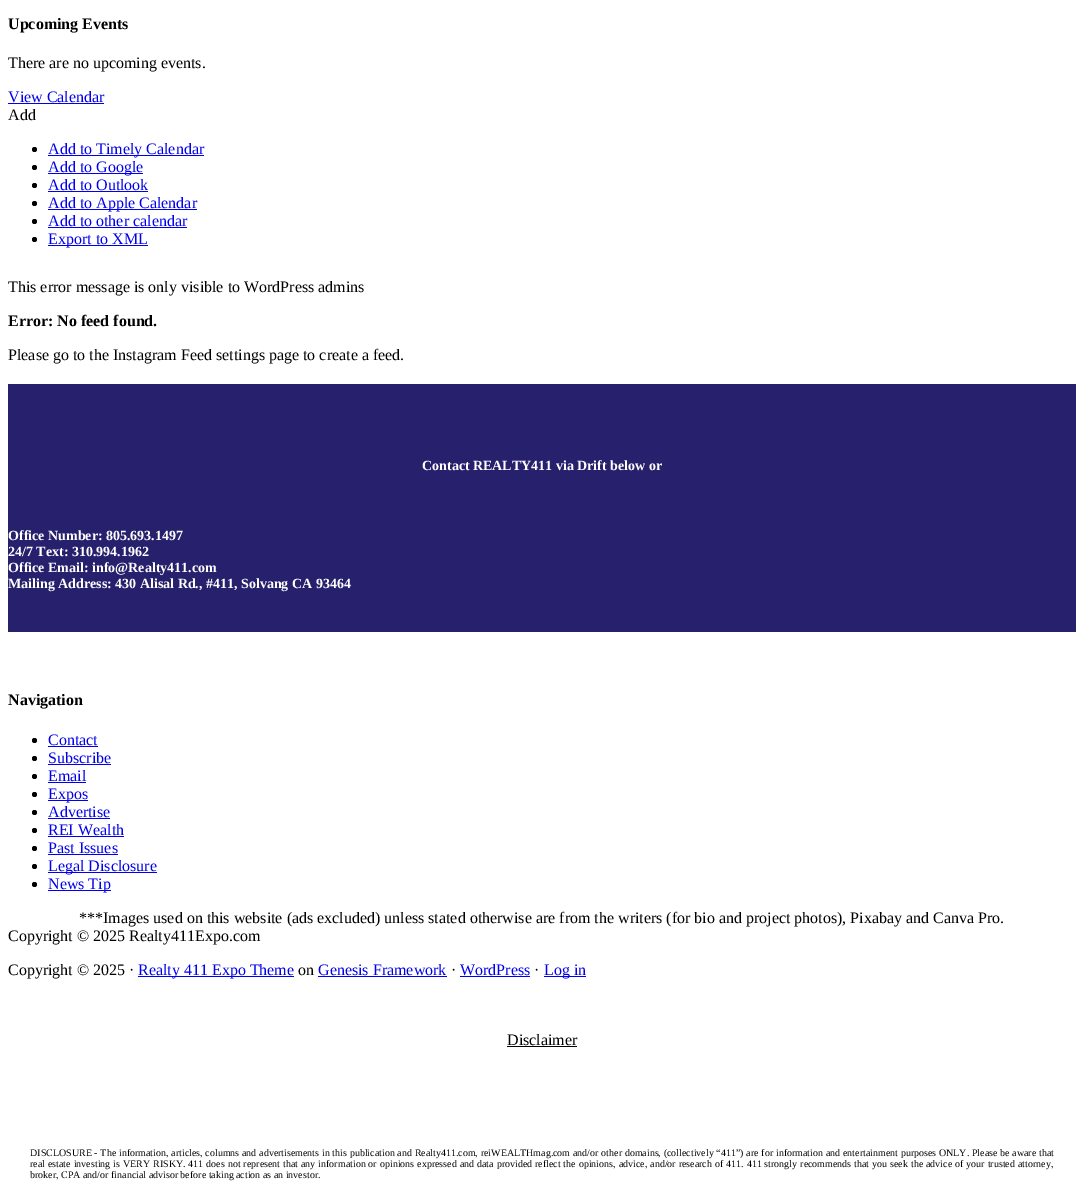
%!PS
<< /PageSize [1084 1190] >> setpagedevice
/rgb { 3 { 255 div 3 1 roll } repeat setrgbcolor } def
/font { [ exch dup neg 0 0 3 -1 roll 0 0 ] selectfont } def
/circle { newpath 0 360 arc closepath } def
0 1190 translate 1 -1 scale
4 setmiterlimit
255 255 255 rgb
0 0 1084 1190 rectfill
0 0 238 rgb
8 103 96 1 rectfill
0 0 0 rgb
34.5 149.5 2.5 circle fill
0 0 238 rgb
48 155 156 1 rectfill
0 0 0 rgb
34.5 167.5 2.5 circle fill
0 0 238 rgb
48 173 95 1 rectfill
0 0 0 rgb
34.5 185.5 2.5 circle fill
0 0 238 rgb
48 191 100 1 rectfill
0 0 0 rgb
34.5 203.5 2.5 circle fill
0 0 238 rgb
48 209 149 1 rectfill
0 0 0 rgb
34.5 221.5 2.5 circle fill
0 0 238 rgb
48 227 139 1 rectfill
0 0 0 rgb
34.5 239.5 2.5 circle fill
0 0 238 rgb
48 245 100 1 rectfill
39 33 109 rgb
8 384 1068 248 rectfill
0 0 0 rgb
34.5 740.5 2.5 circle fill
0 0 238 rgb
48 746 50 1 rectfill
0 0 0 rgb
34.5 758.5 2.5 circle fill
0 0 238 rgb
48 764 63 1 rectfill
0 0 0 rgb
34.5 776.5 2.5 circle fill
0 0 238 rgb
48 782 38 1 rectfill
0 0 0 rgb
34.5 794.5 2.5 circle fill
0 0 238 rgb
48 800 40 1 rectfill
0 0 0 rgb
34.5 812.5 2.5 circle fill
0 0 238 rgb
48 818 62 1 rectfill
0 0 0 rgb
34.5 830.5 2.5 circle fill
0 0 238 rgb
48 836 76 1 rectfill
0 0 0 rgb
34.5 848.5 2.5 circle fill
0 0 238 rgb
48 854 70 1 rectfill
0 0 0 rgb
34.5 866.5 2.5 circle fill
0 0 238 rgb
48 872 109 1 rectfill
0 0 0 rgb
34.5 884.5 2.5 circle fill
[
  [48 890 63 1 0 0 238]
  [138 976 156 1 0 0 238]
  [318 976 129 1 0 0 238]
  [460 976 70 1 0 0 238]
  [544 976 42 1 0 0 238]
  [507 1046 70 1 0 0 0]
] { aload pop rgb rectfill } forall
/LiberationSerif-Bold 16 font
8 29 moveto (Upcoming Events) show
/LiberationSerif-Regular 16 font
8 68 moveto (There are no upcoming events.) show
0 0 238 rgb
8 102 moveto (View Calendar) show
0 0 0 rgb
8 120 moveto (Add) show
0 0 238 rgb
[
  [(Add to Timely Calendar) 48 154]
  [(Add to Google) 48 172]
  [(Add to Outlook) 48 190]
  [(Add to Apple Calendar) 48 208]
  [(Add to other calendar) 48 226]
  [(Export to XML) 48 244]
] { aload pop moveto show } forall
0 0 0 rgb
8 292 moveto (This error message is only visible to WordPress admins) show
/LiberationSerif-Bold 16 font
8 326 moveto (Error: No feed found.) show
/LiberationSerif-Regular 16 font
8 360 moveto (Please go to the Instagram Feed settings page to create a feed.) show
/LiberationSerif-Bold 14 font
255 255 255 rgb
[
  [(Contact REALTY411 via Drift below or) 422 470]
  [(Office Number: 805.693.1497) 8 540]
  [(24/7 Text: 310.994.1962) 8 556]
  [(Office Email: info@Realty411.com) 8 572]
  [(Mailing Address: 430 Alisal Rd., #411, Solvang CA 93464) 8 588]
] { aload pop moveto show } forall
/LiberationSerif-Bold 16 font
0 0 0 rgb
8 705 moveto (Navigation) show
/LiberationSerif-Regular 16 font
0 0 238 rgb
[
  [(Contact) 48 745]
  [(Subscribe) 48 763]
  [(Email) 48 781]
  [(Expos) 48 799]
  [(Advertise) 48 817]
  [(REI Wealth) 48 835]
  [(Past Issues) 48 853]
  [(Legal Disclosure) 48 871]
  [(News Tip) 48 889]
] { aload pop moveto show } forall
0 0 0 rgb
[
  [(***Images used on this website \(ads excluded\) unless stated otherwise are from the writers \(for bio and project photos\), Pixabay and Canva Pro.) 79 923]
  [(Copyright © 2025 Realty411Expo.com) 8 941]
  [(Copyright © 2025 ·) 8 975]
] { aload pop moveto show } forall
0 0 238 rgb
138 975 moveto (Realty 411 Expo Theme) show
0 0 0 rgb
298 975 moveto (on) show
0 0 238 rgb
318 975 moveto (Genesis Framework) show
0 0 0 rgb
451 975 moveto (·) show
0 0 238 rgb
460 975 moveto (WordPress) show
0 0 0 rgb
534 975 moveto (·) show
0 0 238 rgb
544 975 moveto (Log in) show
0 0 0 rgb
507 1045 moveto (Disclaimer) show
/LiberationSerif-Regular 10 font
30 1156 moveto 0.25 0 32 (DISCLOSURE - The information, articles, columns and advertisements in this publication and Realty411.com, reiWEALTHmag.com and/or other domains, \(collectively “411”\) are for information and entertainment purposes ONLY. Please be aware that) widthshow
30 1167 moveto 0.45 0 32 (real estate investing is VERY RISKY. 411 does not represent that any information or opinions expressed and data provided reflect the opinions, advice, and/or research of 411. 411 strongly recommends that you seek the advice of your trusted attorney,) widthshow
30 1178 moveto (broker, CPA and/or financial advisor before taking action as an investor.) show
showpage
